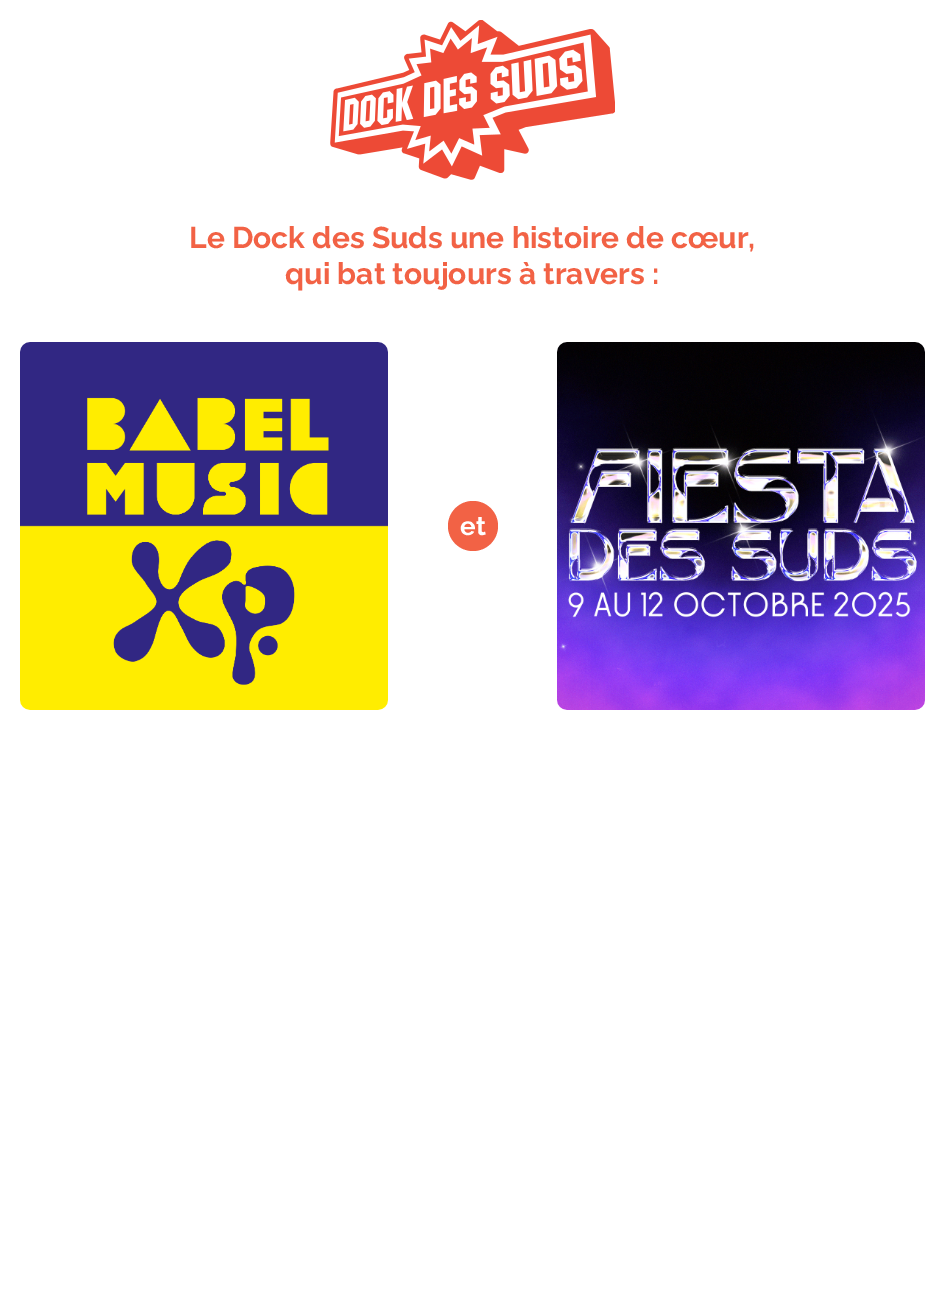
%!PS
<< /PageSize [945 1294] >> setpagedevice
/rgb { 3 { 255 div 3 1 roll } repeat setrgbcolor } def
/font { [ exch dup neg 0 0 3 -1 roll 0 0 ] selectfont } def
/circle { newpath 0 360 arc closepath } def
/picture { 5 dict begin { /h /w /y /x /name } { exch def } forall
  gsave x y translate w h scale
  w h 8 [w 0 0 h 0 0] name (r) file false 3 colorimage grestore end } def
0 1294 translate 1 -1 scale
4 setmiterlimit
255 255 255 rgb
0 0 945 1294 rectfill
(img/1.rgb) 330 20 285 160 picture
(img/2.rgb) 20 342 368 368 picture
242 98 69 rgb
473 526 25 circle fill
(img/3.rgb) 557 342 368 368 picture
/Raleway-Thin 30 font
189 248 moveto (Le Dock des Suds une histoire de cœur,) show
285 284 moveto (qui bat toujours à travers :) show
/Raleway-Thin 26 font
255 255 255 rgb
460 535 moveto (et) show
showpage
